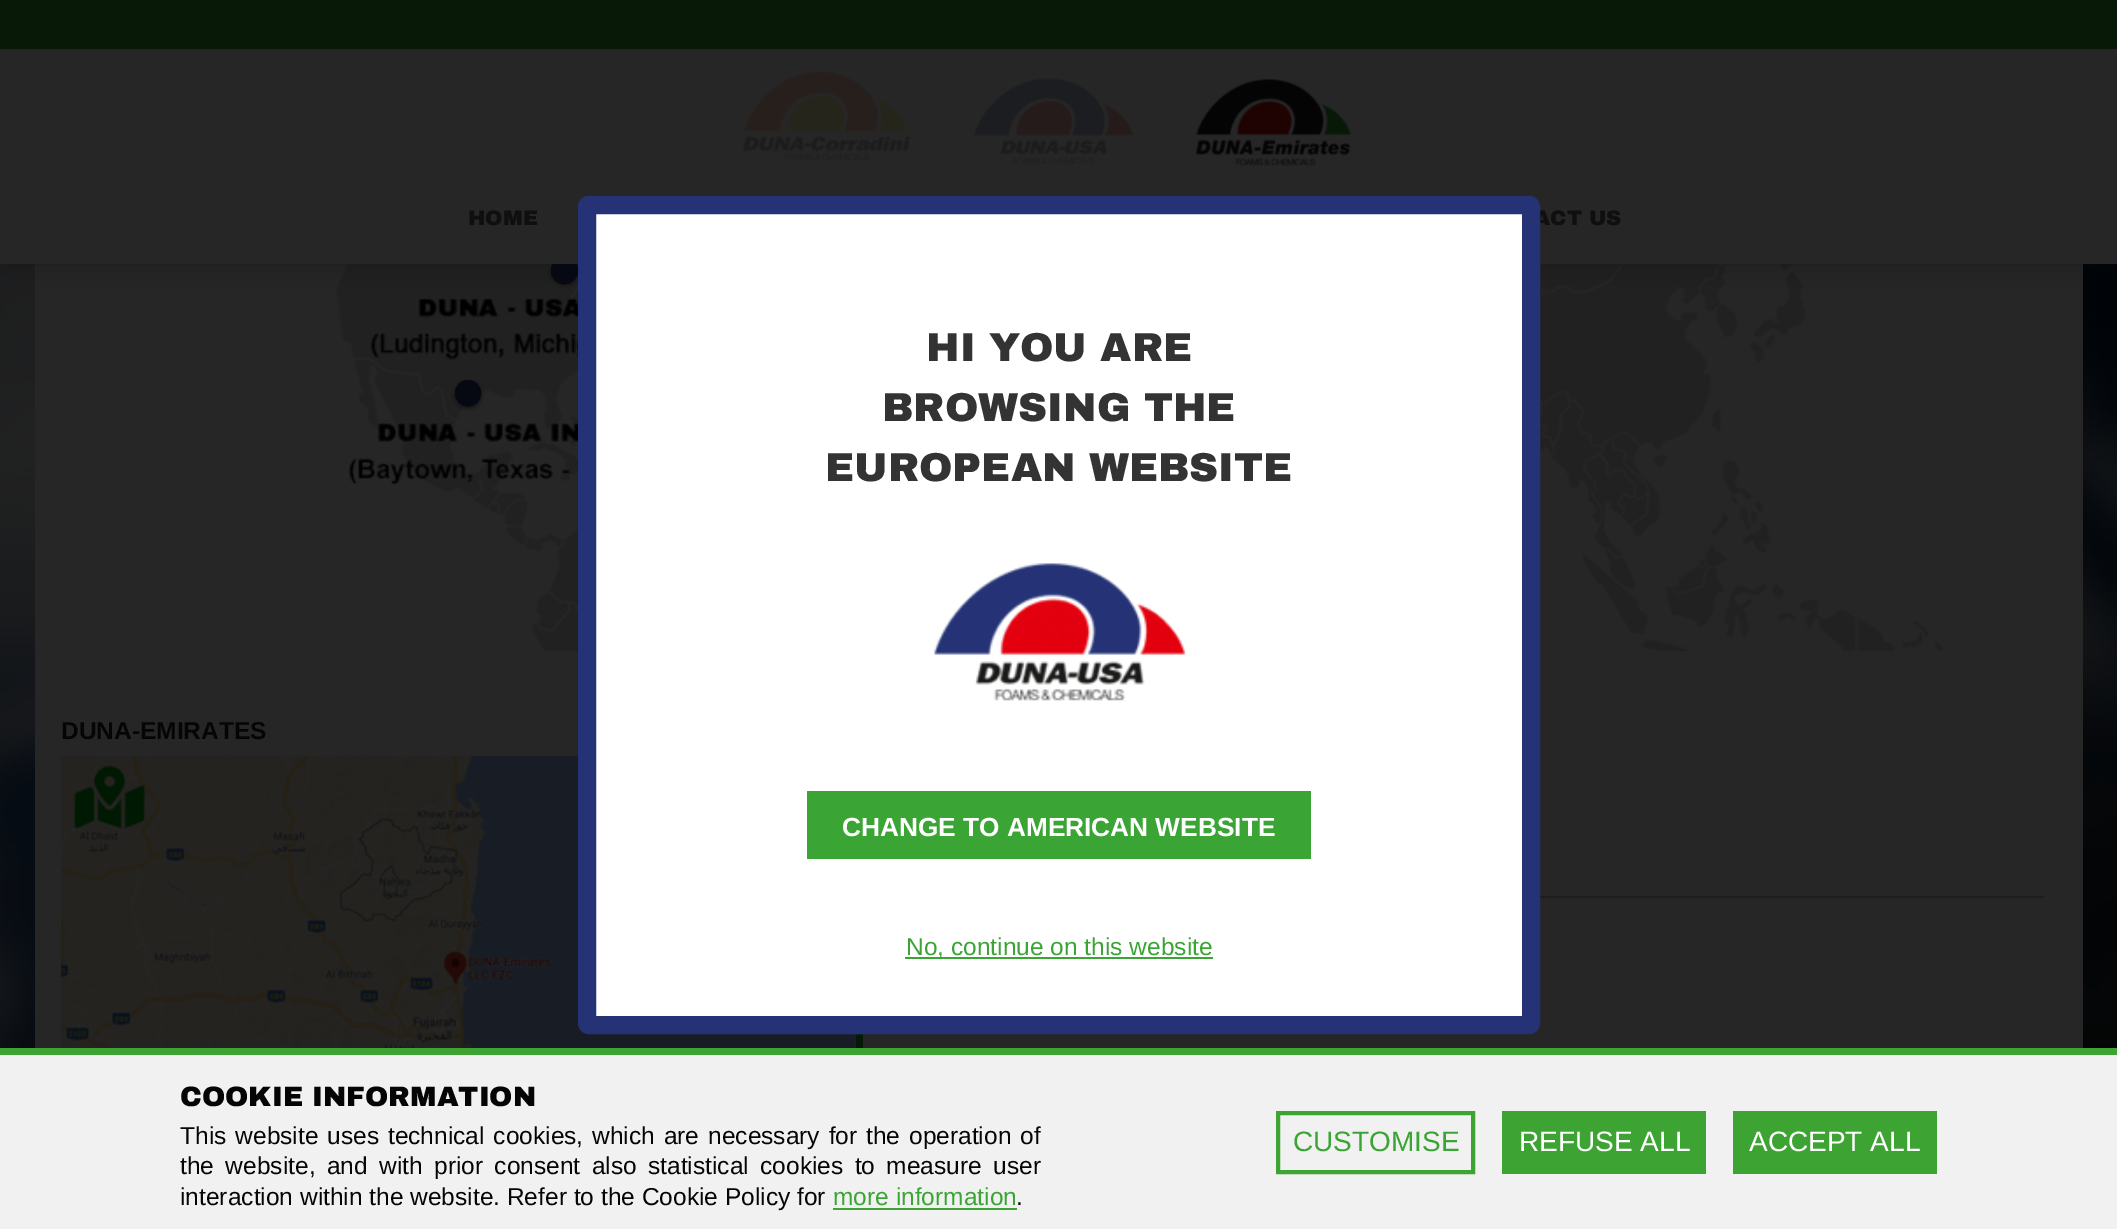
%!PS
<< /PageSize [2117 1229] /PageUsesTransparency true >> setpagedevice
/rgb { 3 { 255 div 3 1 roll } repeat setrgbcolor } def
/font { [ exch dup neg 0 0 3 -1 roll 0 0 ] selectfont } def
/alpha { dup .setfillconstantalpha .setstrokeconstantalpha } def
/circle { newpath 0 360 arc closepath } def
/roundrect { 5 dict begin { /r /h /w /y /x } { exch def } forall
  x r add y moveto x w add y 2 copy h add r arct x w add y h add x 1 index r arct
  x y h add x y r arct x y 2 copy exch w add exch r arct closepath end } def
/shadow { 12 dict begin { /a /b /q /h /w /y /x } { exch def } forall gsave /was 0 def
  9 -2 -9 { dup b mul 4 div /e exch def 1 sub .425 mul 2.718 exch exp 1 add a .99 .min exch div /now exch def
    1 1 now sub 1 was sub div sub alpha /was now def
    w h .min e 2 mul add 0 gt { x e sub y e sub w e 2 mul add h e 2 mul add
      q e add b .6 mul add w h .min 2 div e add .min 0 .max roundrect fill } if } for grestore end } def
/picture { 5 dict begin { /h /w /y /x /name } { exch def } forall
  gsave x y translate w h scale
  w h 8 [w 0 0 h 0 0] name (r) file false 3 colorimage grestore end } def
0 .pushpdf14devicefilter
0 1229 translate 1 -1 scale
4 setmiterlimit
255 255 255 rgb
0 0 2117 1229 rectfill
(img/1.rgb) 0 264 2117 784 picture
38 38 38 rgb
35 264 2048 784 rectfill
(img/5.rgb) 335 264 1609 388 picture
0 0 0 rgb
551 259 27 26 13 2 0.5 shadow
6 8 18 rgb
564.5 270.5 11 circle gsave fill grestore
5 setlinewidth
stroke
2 setlinewidth
564.5 270.5 12.5 circle stroke
564.5 270.5 12.5 circle stroke
0 0 0 rgb
7 14 2104 250 0 5 0.1 shadow
5 23 2107 254 0 13 0.1 shadow
38 38 38 rgb
0 49 2117 215 rectfill
9 25 8 rgb
0 0 2117 49 rectfill
(img/2.rgb) 742 71 169 90 picture
(img/3.rgb) 973 78 161 87 picture
(img/4.rgb) 1195 78 157 88 picture
0 0 0 rgb
455 382 26 26 13 2 0.5 shadow
6 8 18 rgb
468 393 10.5 circle gsave fill grestore
5 setlinewidth
stroke
2 setlinewidth
468 393 12 circle stroke
9 25 8 rgb
856 1034 7 14 rectfill
(img/6.rgb) 61 756 795 292 picture
[
  [1540 896 504 2 29 29 29]
  [0 1055 2117 174 241 241 241]
  [0 1048 2117 7 61 164 52]
  [833 1208 184 2 61 164 52]
] { aload pop rgb rectfill } forall
4 setlinewidth
1278 1113 195 59 rectstroke
1502 1111 204 63 rectfill
1733 1111 204 63 rectfill
/ArchivoBlack-Black 21 font
15 15 15 rgb
468 225 moveto (HOME) show
1534 225 moveto (ACT US) show
/LiberationSans-Bold 24.5 font
5 5 5 rgb
61 739 moveto (DUNA-EMIRATES) show
255 255 255 rgb
587 205 944 820 2 roundrect gsave fill grestore
37 51 118 rgb
18 setlinewidth
stroke
/ArchivoBlack-Black 40.25 font
51 51 51 rgb
[
  [(HI YOU ARE) 926 361]
  [(BROWSING THE) 882 421]
  [(EUROPEAN WEBSITE) 825 481]
] { aload pop moveto show } forall
(img/7.rgb) 934 563 252 138 picture
58 164 52 rgb
807 791 504 68 rectfill
/LiberationSans-Bold 26.25 font
255 255 255 rgb
842 836 moveto (CHANGE TO AMERICAN WEBSITE) show
58 164 52 rgb
905 957 308 2 rectfill
/LiberationSans-Regular 24.5 font
906 955 moveto (No, continue on this website) show
/ArchivoBlack-Black 28 font
5 5 5 rgb
180 1106 moveto (COOKIE INFORMATION) show
/LiberationSans-Regular 24.5 font
180 1144 moveto 2.1 0 32 (This website uses technical cookies, which are necessary for the operation of) widthshow
180 1174 moveto 4.6 0 32 (the website, and with prior consent also statistical cookies to measure user) widthshow
180 1205 moveto (interaction within the website. Refer to the Cookie Policy for) show
58 164 52 rgb
833 1205 moveto (more information) show
5 5 5 rgb
1016 1205 moveto (.) show
/LiberationSans-Regular 28 font
58 164 52 rgb
1293 1151 moveto (CUSTOMISE) show
255 255 255 rgb
1519 1151 moveto (REFUSE ALL) show
1749 1151 moveto (ACCEPT ALL) show
.poppdf14devicefilter showpage
